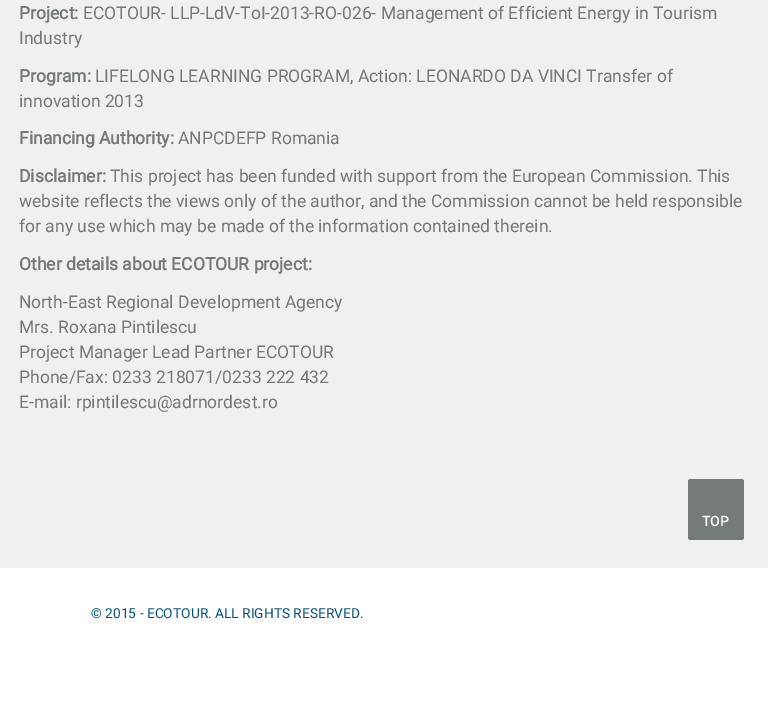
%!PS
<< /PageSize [768 725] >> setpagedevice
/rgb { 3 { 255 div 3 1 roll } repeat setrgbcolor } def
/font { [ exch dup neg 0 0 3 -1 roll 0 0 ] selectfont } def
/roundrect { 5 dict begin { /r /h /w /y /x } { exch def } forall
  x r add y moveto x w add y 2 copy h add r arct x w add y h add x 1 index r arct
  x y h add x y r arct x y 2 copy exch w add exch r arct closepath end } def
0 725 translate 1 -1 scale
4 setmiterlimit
255 255 255 rgb
0 0 768 725 rectfill
240 240 240 rgb
0 0 768 568 rectfill
117 122 123 rgb
688 479 56 61 2.5 roundrect fill
/Roboto-Bold 17.5 font
117 121 123 rgb
19 19 moveto (Project:) show
/Roboto-Regular 17.5 font
83 19 moveto (ECOTOUR- LLP-LdV-ToI-2013-RO-026- Management of Efficient Energy in Tourism) show
19 44 moveto (Industry) show
/Roboto-Bold 17.5 font
19 82 moveto (Program:) show
/Roboto-Regular 17.5 font
95 82 moveto (LIFELONG LEARNING PROGRAM, Action: LEONARDO DA VINCI Transfer of) show
19 107 moveto (innovation 2013) show
/Roboto-Bold 17.5 font
19 144 moveto (Financing Authority:) show
/Roboto-Regular 17.5 font
178 144 moveto (ANPCDEFP Romania) show
/Roboto-Bold 17.5 font
19 182 moveto (Disclaimer:) show
/Roboto-Regular 17.5 font
[
  [(This project has been funded with support from the European Commission. This) 110 182]
  [(website reflects the views only of the author, and the Commission cannot be held responsible) 19 207]
  [(for any use which may be made of the information contained therein.) 19 232]
] { aload pop moveto show } forall
/Roboto-Bold 17.5 font
19 270 moveto (Other details about ECOTOUR project:) show
/Roboto-Regular 17.5 font
[
  [(North-East Regional Development Agency) 19 308]
  [(Mrs. Roxana Pintilescu) 19 333]
  [(Project Manager Lead Partner ECOTOUR) 19 358]
  [(Phone/Fax: 0233 218071/0233 222 432) 19 383]
  [(E-mail: rpintilescu@adrnordest.ro) 19 408]
] { aload pop moveto show } forall
/Roboto-Bold 13.75 font
249 249 249 rgb
702 526 moveto (TOP) show
/Roboto-Regular 13.75 font
5 82 127 rgb
91 618 moveto (© 2015 - ECOTOUR. ALL RIGHTS RESERVED.) show
showpage
